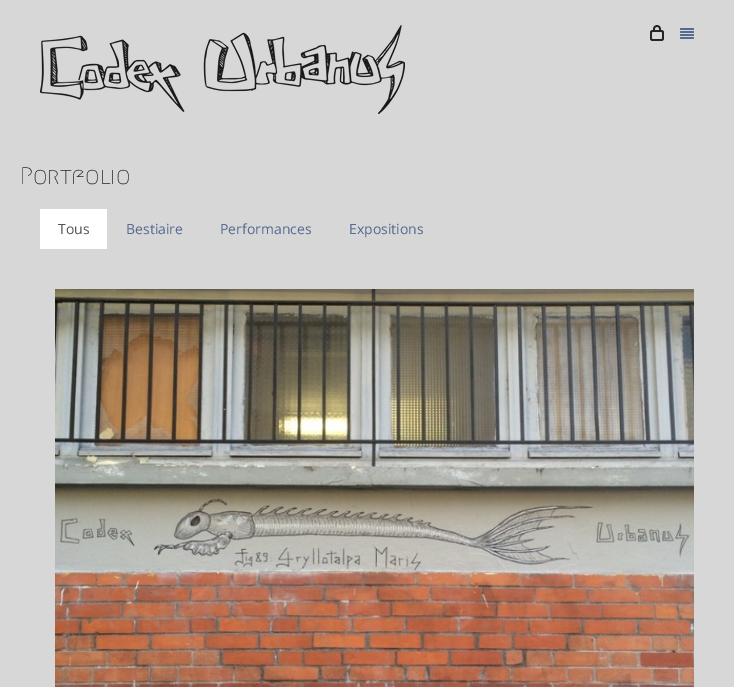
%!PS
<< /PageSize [734 687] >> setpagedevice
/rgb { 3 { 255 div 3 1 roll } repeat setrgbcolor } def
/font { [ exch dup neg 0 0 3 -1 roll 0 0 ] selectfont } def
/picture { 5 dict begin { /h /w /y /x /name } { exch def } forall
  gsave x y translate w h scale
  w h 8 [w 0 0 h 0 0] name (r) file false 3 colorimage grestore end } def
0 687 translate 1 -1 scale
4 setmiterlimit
215 215 215 rgb
0 0 734 687 rectfill
(img/1.rgb) 40 25 365 89 picture
(img/2.rgb) 650 25 14 16 picture
(img/3.rgb) 680 28 14 11 picture
255 255 255 rgb
40 209 67 40 rectfill
(img/4.rgb) 55 289 639 398 picture
/Megrim-Medium 24 font
34 34 34 rgb
20 184 moveto (Portfolio) show
/OpenSans-Regular 14 font
85 85 85 rgb
58 234 moveto (Tous) show
85 105 145 rgb
[
  [(Bestiaire) 126 234]
  [(Performances) 220 234]
  [(Expositions) 349 234]
] { aload pop moveto show } forall
showpage
